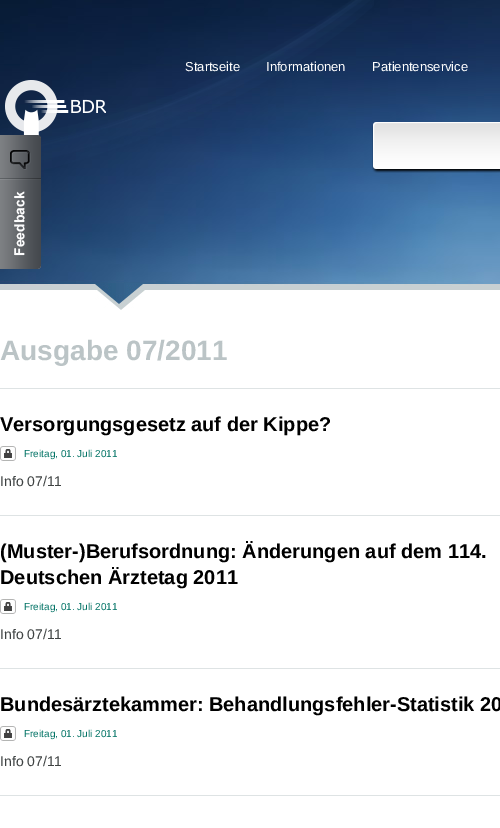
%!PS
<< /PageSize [500 828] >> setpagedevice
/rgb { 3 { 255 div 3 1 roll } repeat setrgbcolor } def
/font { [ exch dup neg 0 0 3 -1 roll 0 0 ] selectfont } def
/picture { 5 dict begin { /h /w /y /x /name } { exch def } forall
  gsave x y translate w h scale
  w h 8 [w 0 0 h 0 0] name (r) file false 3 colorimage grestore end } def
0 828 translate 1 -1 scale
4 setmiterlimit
255 255 255 rgb
0 0 500 828 rectfill
(img/1.rgb) 0 0 500 286 picture
(img/2.rgb) 38 0 336 170 picture
(img/3.rgb) 372 122 128 51 picture
(img/4.rgb) 5 80 101 56 picture
(img/5.rgb) 0 135 41 134 picture
(img/6.rgb) 0 286 473 4 picture
(img/7.rgb) 473 286 27 4 picture
(img/8.rgb) 95 284 50 26 picture
222 227 228 rgb
0 388 500 1 rectfill
0 515 500 1 rectfill
(img/9.rgb) 0 446 16 15 picture
0 668 500 1 rectfill
(img/9.rgb) 0 599 16 15 picture
0 795 500 1 rectfill
(img/9.rgb) 0 726 16 15 picture
/LiberationSans-Regular 13 font
255 255 255 rgb
[
  [(Startseite) 185 71]
  [(Informationen) 266 71]
  [(Patientenservice) 372 71]
] { aload pop moveto show } forall
/LiberationSans-Bold 28 font
187 196 198 rgb
0 360 moveto (Ausgabe 07/2011) show
/LiberationSans-Bold 20 font
0 0 0 rgb
0 431 moveto (Versorgungsgesetz auf der Kippe?) show
/LiberationSans-Regular 10 font
0 114 100 rgb
24 457 moveto (Freitag, 01. Juli 2011) show
/LiberationSans-Regular 14 font
62 66 66 rgb
0 486 moveto (Info 07/11) show
/LiberationSans-Bold 20 font
0 0 0 rgb
0 558 moveto (\(Muster-\)Berufsordnung: Änderungen auf dem 114.) show
0 584 moveto (Deutschen Ärztetag 2011) show
/LiberationSans-Regular 10 font
0 114 100 rgb
24 610 moveto (Freitag, 01. Juli 2011) show
/LiberationSans-Regular 14 font
62 66 66 rgb
0 639 moveto (Info 07/11) show
/LiberationSans-Bold 20 font
0 0 0 rgb
0 711 moveto (Bundesärztekammer: Behandlungsfehler-Statistik 20) show
/LiberationSans-Regular 10 font
0 114 100 rgb
24 737 moveto (Freitag, 01. Juli 2011) show
/LiberationSans-Regular 14 font
62 66 66 rgb
0 766 moveto (Info 07/11) show
showpage
